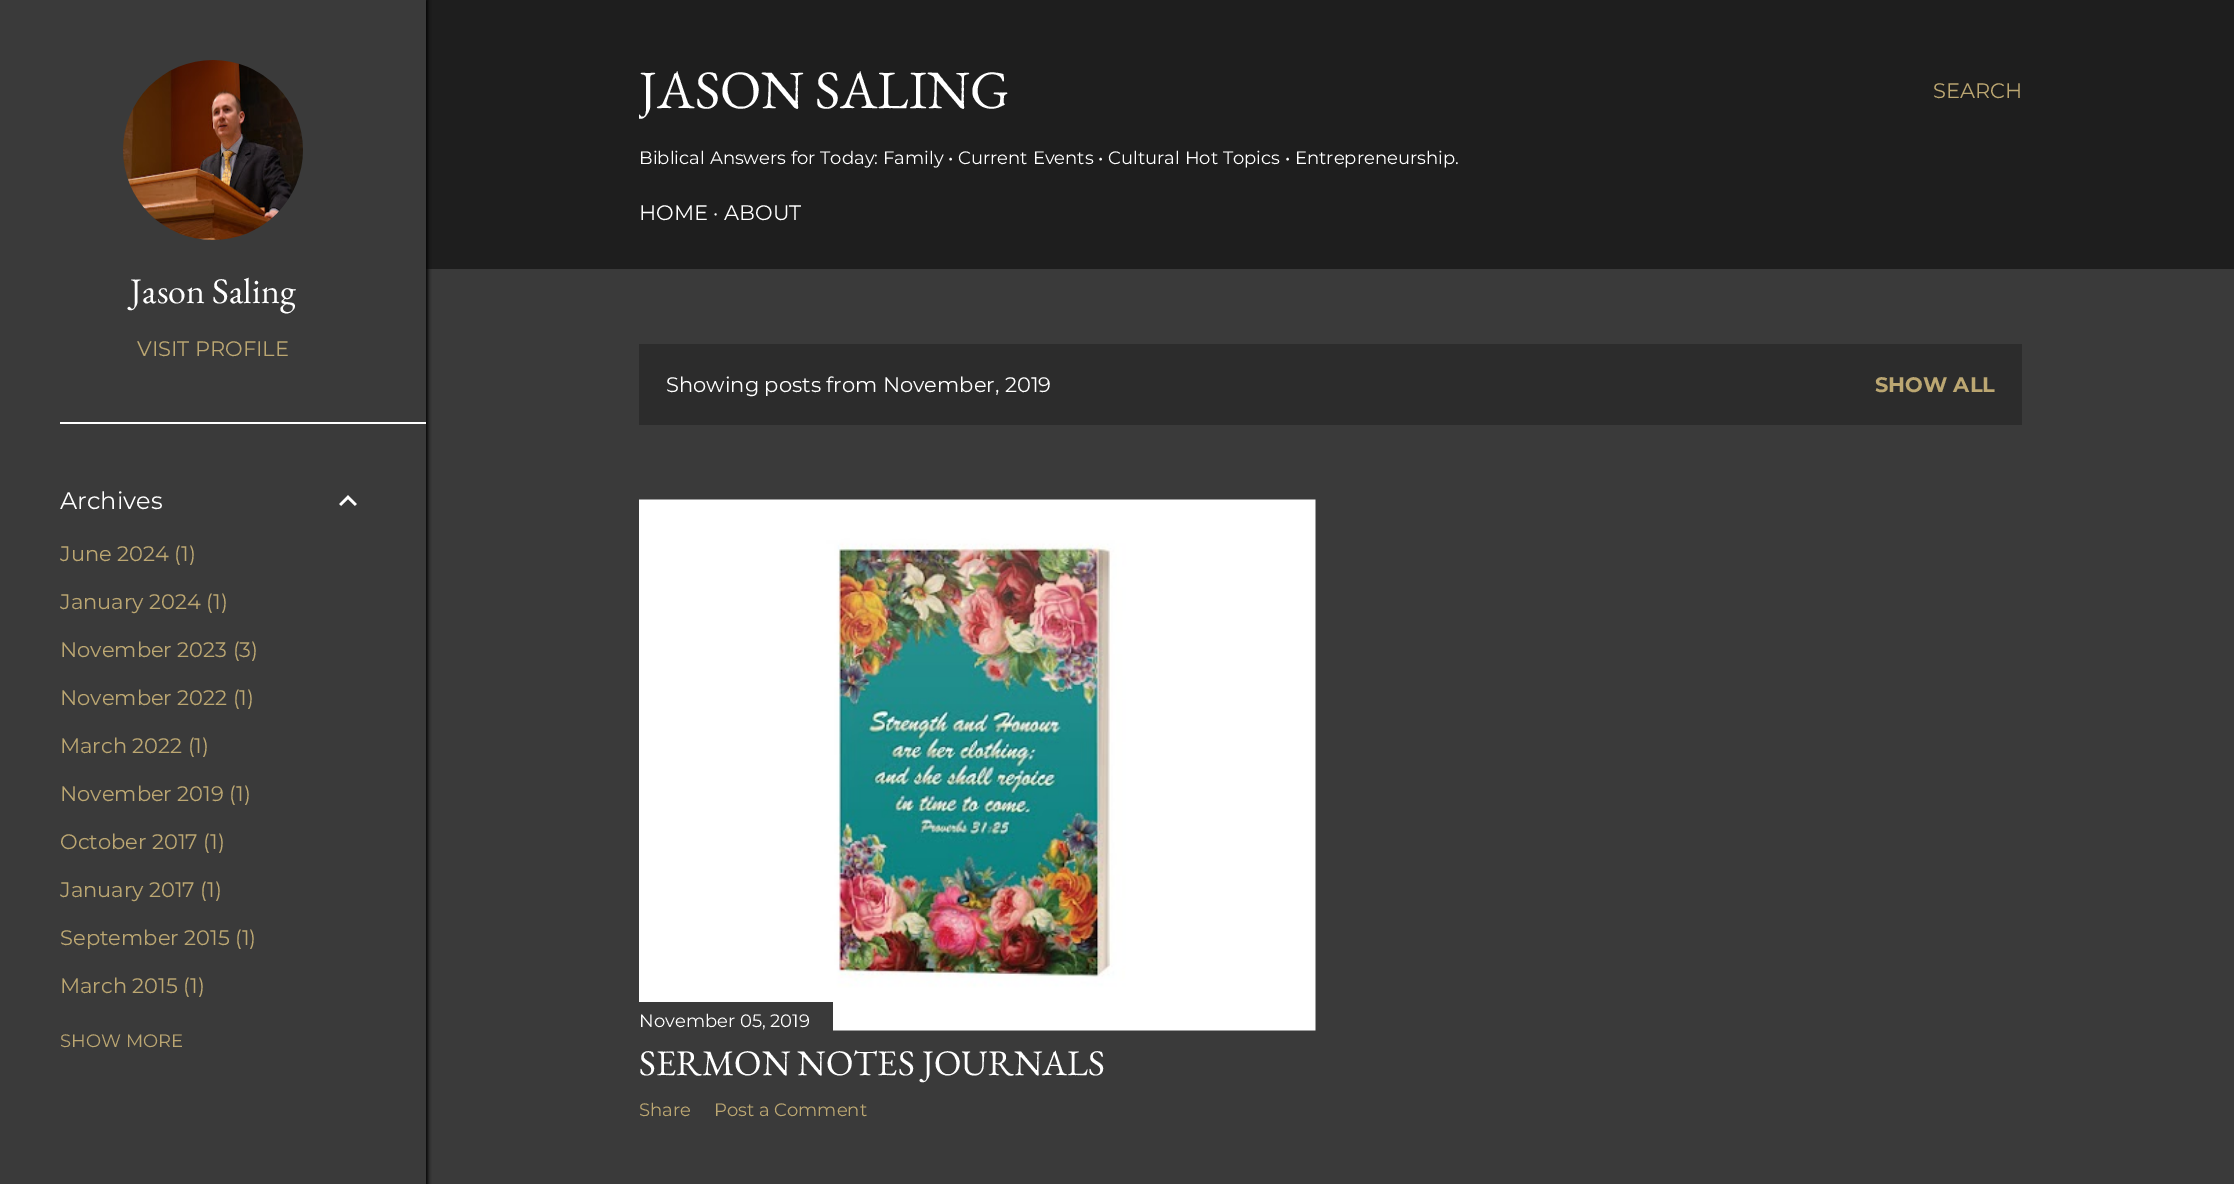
%!PS
<< /PageSize [2234 1184] /PageUsesTransparency true >> setpagedevice
/rgb { 3 { 255 div 3 1 roll } repeat setrgbcolor } def
/font { [ exch dup neg 0 0 3 -1 roll 0 0 ] selectfont } def
/alpha { dup .setfillconstantalpha .setstrokeconstantalpha } def
/roundrect { 5 dict begin { /r /h /w /y /x } { exch def } forall
  x r add y moveto x w add y 2 copy h add r arct x w add y h add x 1 index r arct
  x y h add x y r arct x y 2 copy exch w add exch r arct closepath end } def
/shadow { 12 dict begin { /a /b /q /h /w /y /x } { exch def } forall gsave /was 0 def
  9 -2 -9 { dup b mul 4 div /e exch def 1 sub .425 mul 2.718 exch exp 1 add a .99 .min exch div /now exch def
    1 1 now sub 1 was sub div sub alpha /was now def
    w h .min e 2 mul add 0 gt { x e sub y e sub w e 2 mul add h e 2 mul add
      q e add b .6 mul add w h .min 2 div e add .min 0 .max roundrect fill } if } for grestore end } def
/picture { 5 dict begin { /h /w /y /x /name } { exch def } forall
  gsave x y translate w h scale
  w h 8 [w 0 0 h 0 0] name (r) file false 3 colorimage grestore end } def
0 .pushpdf14devicefilter
0 1184 translate 1 -1 scale
4 setmiterlimit
58 58 58 rgb
0 0 2234 1184 rectfill
30 30 30 rgb
426 0 1808 269 rectfill
gsave
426 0 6 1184 rectclip
0 0 0 rgb
2 0 426 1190 0 2 1 shadow
grestore
(img/1.rgb) 123 60 180 180 picture
255 255 255 rgb
60 422 366 2 rectfill
(img/2.rgb) 339 495 18 11 picture
44 44 44 rgb
639 344 1383 81 rectfill
(img/3.rgb) 639 499 677 532 picture
58 58 58 rgb
639 1002 194 29 rectfill
/EBGaramond-Regular 36 font
255 255 255 rgb
130 303 moveto (Jason Saling) show
/Montserrat-Regular 21 font
188 167 114 rgb
137 356 moveto (VISIT PROFILE) show
/Montserrat-Regular 24 font
255 255 255 rgb
60 509 moveto (Archives) show
/Montserrat-Regular 21 font
188 167 114 rgb
[
  [(June 2024 \(1\)) 60 561]
  [(January 2024 \(1\)) 60 609]
  [(November 2023 \(3\)) 60 657]
  [(November 2022 \(1\)) 60 705]
  [(March 2022 \(1\)) 60 753]
  [(November 2019 \(1\)) 60 801]
  [(October 2017 \(1\)) 60 849]
  [(January 2017 \(1\)) 60 897]
  [(September 2015 \(1\)) 60 945]
  [(March 2015 \(1\)) 60 993]
] { aload pop moveto show } forall
/Montserrat-Regular 18 font
60 1047 moveto (SHOW MORE) show
gsave
639 54 1223 179 rectclip
/EBGaramond-Regular 54 font
255 255 255 rgb
639 108 moveto (JASON SALING) show
grestore
255 255 255 rgb
639 164 moveto (Biblical Answers for Today: Family • Current Events • Cultural Hot Topics • Entrepreneurship.) show
/Montserrat-Regular 21 font
639 220 moveto (HOME · ABOUT) show
188 167 114 rgb
1933 98 moveto (SEARCH) show
255 255 255 rgb
666 392 moveto (Showing posts from November, 2019) show
/Montserrat-Bold 21 font
188 167 114 rgb
1875 392 moveto (SHOW ALL) show
/Montserrat-Regular 18 font
255 255 255 rgb
639 1027 moveto (November 05, 2019) show
/EBGaramond-Regular 36 font
639 1075 moveto (SERMON NOTES JOURNALS) show
/Montserrat-Regular 18 font
188 167 114 rgb
639 1116 moveto (Share) show
714 1116 moveto (Post a Comment) show
.poppdf14devicefilter showpage
